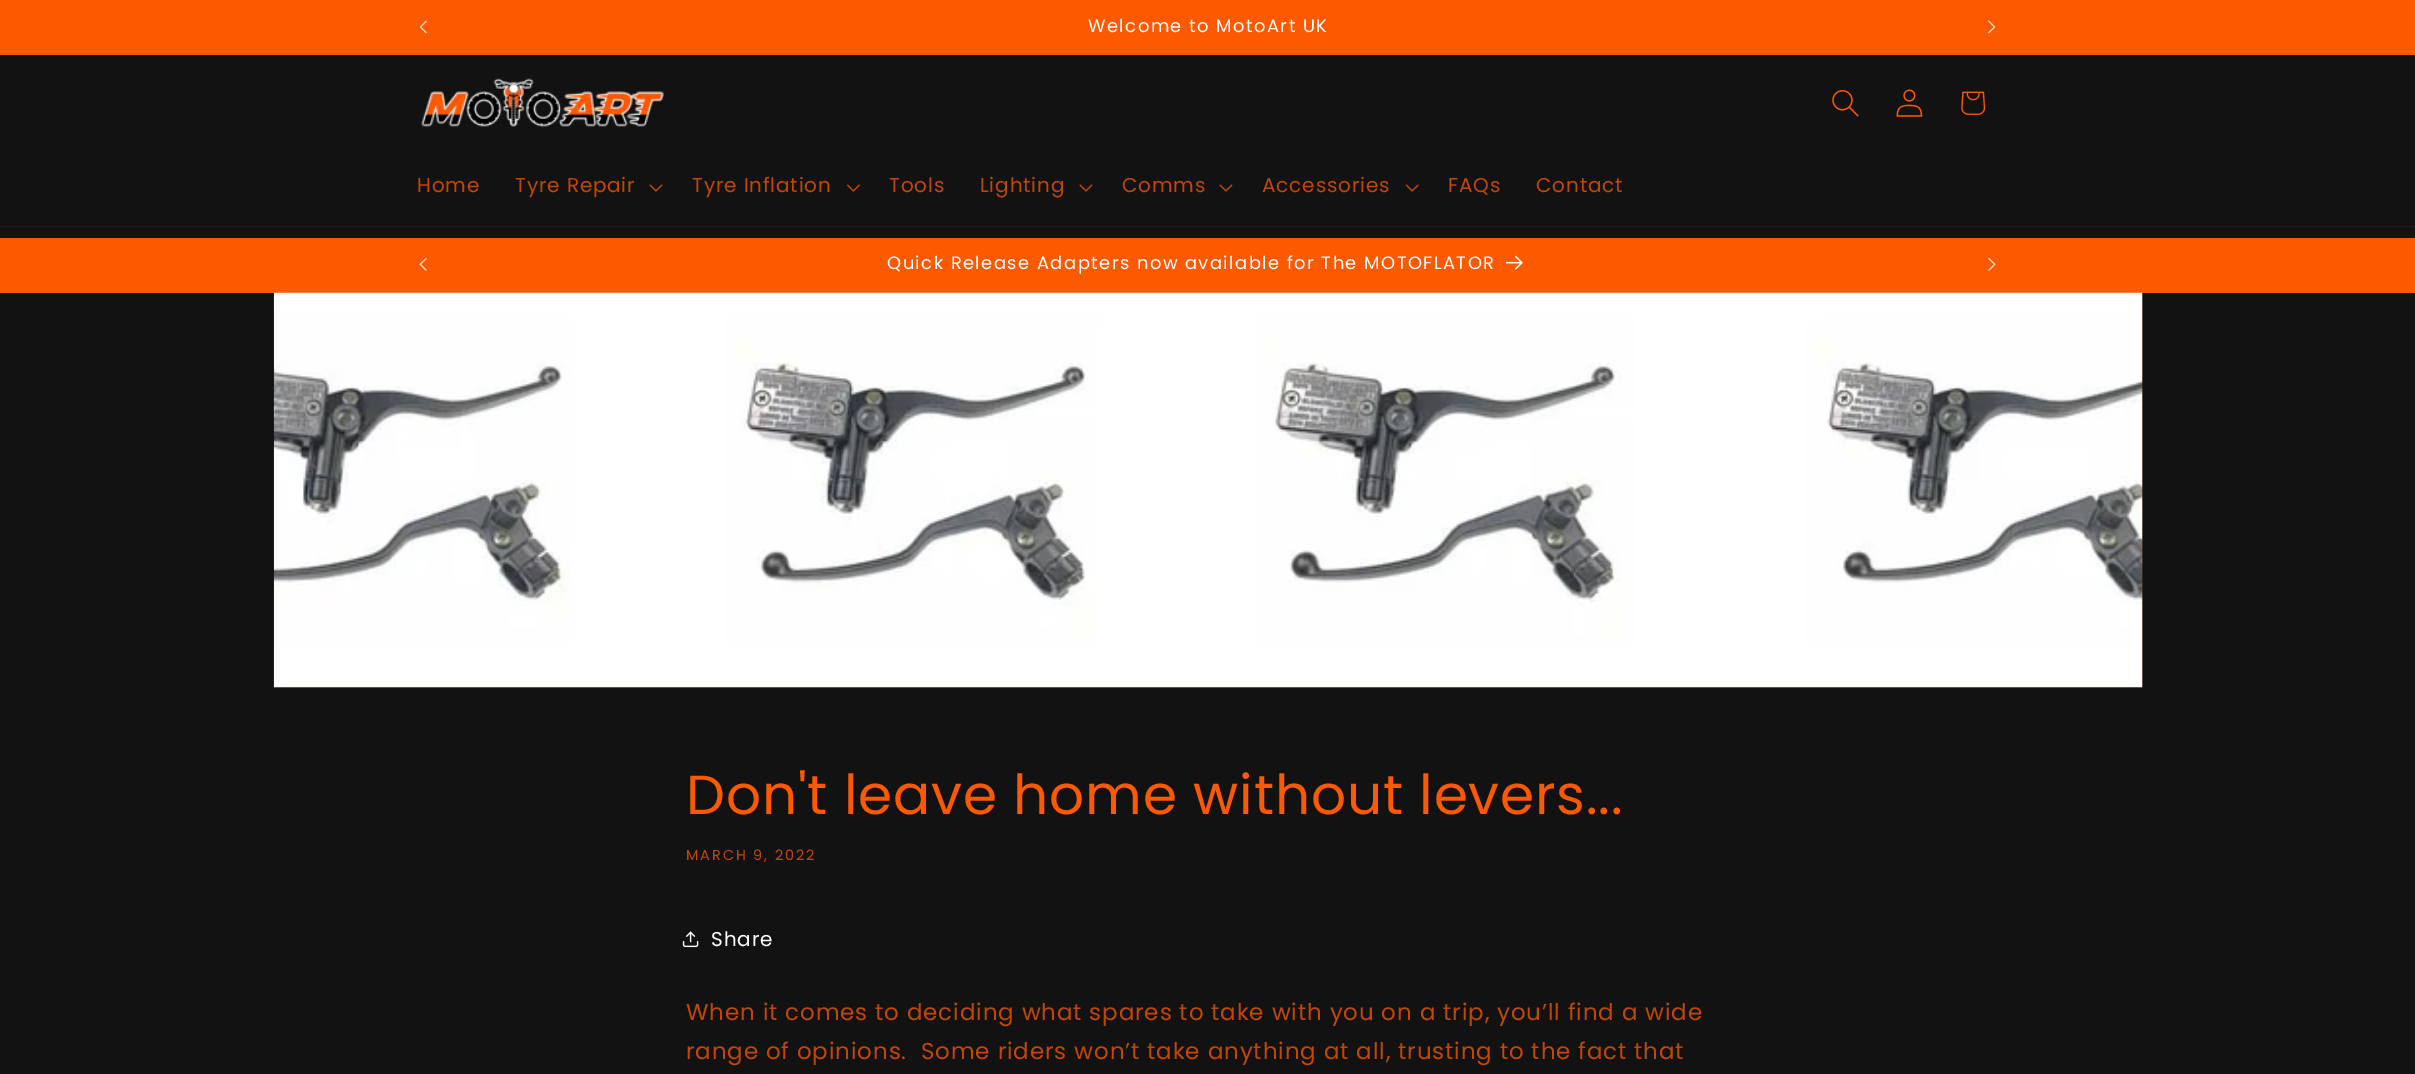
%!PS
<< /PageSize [2415 1074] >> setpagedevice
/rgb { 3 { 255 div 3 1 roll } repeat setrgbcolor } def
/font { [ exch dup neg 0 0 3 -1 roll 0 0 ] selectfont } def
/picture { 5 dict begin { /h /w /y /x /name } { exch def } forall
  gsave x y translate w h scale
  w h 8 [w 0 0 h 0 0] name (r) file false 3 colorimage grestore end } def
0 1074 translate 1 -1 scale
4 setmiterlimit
18 18 18 rgb
0 0 2415 1074 rectfill
252 89 0 rgb
0 0 2415 55 rectfill
(img/1.rgb) 419 20 8 14 picture
(img/2.rgb) 1988 20 8 14 picture
37 24 17 rgb
0 226 2415 1 rectfill
(img/3.rgb) 421 78 243 49 picture
(img/4.rgb) 1832 90 27 27 picture
(img/5.rgb) 1896 89 27 28 picture
(img/6.rgb) 1961 91 25 24 picture
(img/7.rgb) 649 184 14 8 picture
(img/8.rgb) 847 184 13 8 picture
(img/7.rgb) 1079 184 14 8 picture
(img/7.rgb) 1219 184 14 8 picture
(img/9.rgb) 1405 184 14 8 picture
252 89 0 rgb
0 238 2415 55 rectfill
(img/10.rgb) 419 258 8 13 picture
(img/11.rgb) 1506 255 17 15 picture
(img/12.rgb) 1988 258 8 13 picture
41 25 16 rgb
274 293 1869 395 rectfill
(img/13.rgb) 273 292 1870 396 picture
(img/14.rgb) 682 931 17 17 picture
/Poppins-Regular 17.9 font
255 255 255 rgb
1088 32 moveto 1.45 0 (Welcome to MotoArt UK) ashow
/Poppins-Regular 20 font
194 71 5 rgb
417 192 moveto 0.85 0 (Home) ashow
515 192 moveto 0.85 0 (Tyre Repair) ashow
692 192 moveto 0.85 0 (Tyre Inflation) ashow
889 192 moveto 0.85 0 (Tools) ashow
980 192 moveto 0.85 0 (Lighting) ashow
1122 192 moveto 0.85 0 (Comms) ashow
1262 192 moveto 0.85 0 (Accessories) ashow
1448 192 moveto 0.85 0 (FAQs) ashow
1536 192 moveto 0.85 0 (Contact) ashow
/Poppins-Regular 17.9 font
255 255 255 rgb
887 269 moveto 1.45 0 (Quick Release Adapters now available for The MOTOFLATOR) ashow
/Poppins-Regular 55 font
252 89 0 rgb
686 814 moveto 0.85 0 (Don't leave home without levers...) ashow
/Poppins-Regular 14.4 font
194 71 5 rgb
686 860 moveto 1.9 0 (MARCH 9, 2022) ashow
/Poppins-Regular 20 font
255 255 255 rgb
711 946 moveto 0.85 0 (Share) ashow
/Poppins-Regular 23 font
194 71 5 rgb
686 1020 moveto 0.85 0 (When it comes to deciding what spares to take with you on a trip, you’ll find a wide) ashow
686 1059 moveto 0.85 0 (range of opinions.  Some riders won’t take anything at all, trusting to the fact that) ashow
showpage
